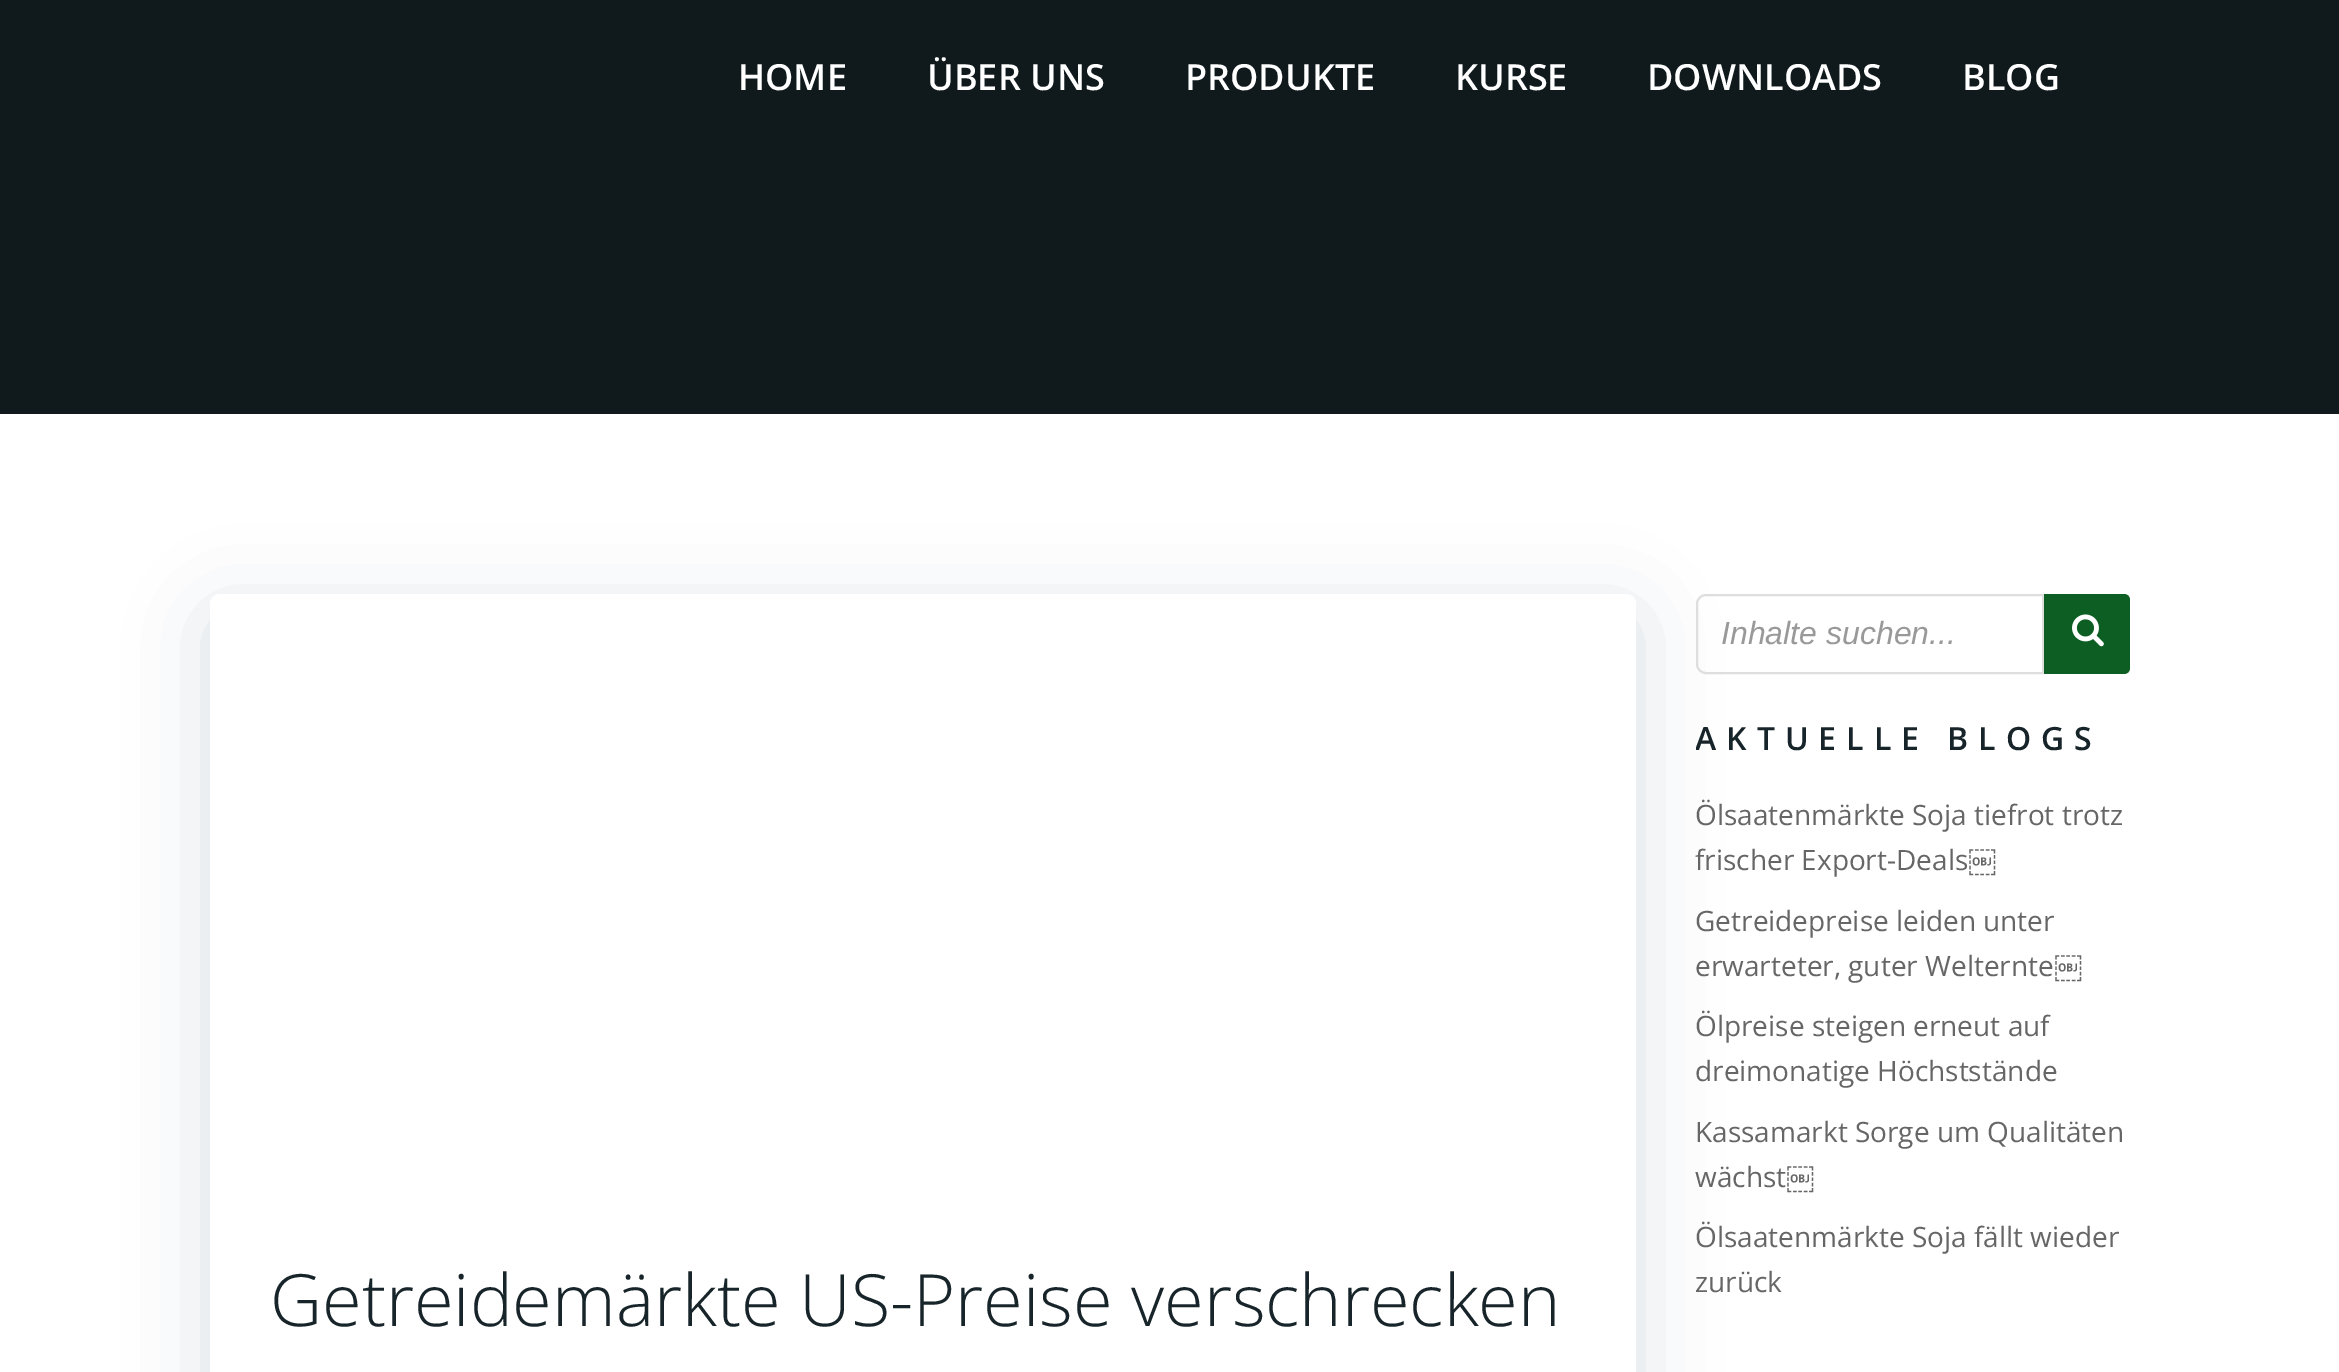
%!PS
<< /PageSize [2339 1372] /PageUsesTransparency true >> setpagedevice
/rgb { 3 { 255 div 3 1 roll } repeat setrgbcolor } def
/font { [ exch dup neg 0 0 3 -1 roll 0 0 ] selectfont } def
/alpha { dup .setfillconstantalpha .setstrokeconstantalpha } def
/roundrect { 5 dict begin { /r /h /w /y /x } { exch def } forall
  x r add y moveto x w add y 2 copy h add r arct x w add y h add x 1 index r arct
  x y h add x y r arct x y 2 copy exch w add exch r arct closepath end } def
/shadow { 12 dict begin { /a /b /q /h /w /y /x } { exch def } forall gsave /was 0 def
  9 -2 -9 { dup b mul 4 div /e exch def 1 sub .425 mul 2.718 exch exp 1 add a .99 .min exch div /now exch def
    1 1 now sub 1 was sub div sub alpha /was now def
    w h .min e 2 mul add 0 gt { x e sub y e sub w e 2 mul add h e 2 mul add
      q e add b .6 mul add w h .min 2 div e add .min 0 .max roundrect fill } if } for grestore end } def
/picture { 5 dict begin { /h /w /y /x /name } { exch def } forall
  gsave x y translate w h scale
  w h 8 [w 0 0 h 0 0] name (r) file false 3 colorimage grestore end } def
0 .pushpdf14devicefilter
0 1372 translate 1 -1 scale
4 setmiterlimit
255 255 255 rgb
0 0 2339 1372 rectfill
16 26 29 rgb
0 0 2339 414 rectfill
1 51 74 rgb
210 614 1426 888 10 40 0.15 shadow
222 222 222 rgb
2 setlinewidth
1706 595 moveto 2043 595 lineto 2043 673 lineto 1706 673 lineto 1701 673 1697 669 1697 664 curveto 1697 604 lineto 1697 599 1701 595 1706 595 curveto closepath stroke
13 94 34 rgb
2044 594 moveto 2124 594 lineto 2127.5 594 2130 596.5 2130 600 curveto 2130 668 lineto 2130 671.5 2127.5 674 2124 674 curveto 2044 674 lineto closepath fill
(img/1.rgb) 2072 614 32 33 picture
255 255 255 rgb
210 594 1426 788 10 roundrect fill
/OpenSans-SemiBold 36 font
[
  [(HOME) 738 90]
  [(ÜBER UNS) 927 90]
  [(PRODUKTE) 1185 90]
  [(KURSE) 1455 90]
  [(DOWNLOADS) 1647 90]
  [(BLOG) 1962 90]
] { aload pop moveto show } forall
/LiberationSans-Italic 32 font
153 153 153 rgb
1721 644 moveto (Inhalte suchen...) show
gsave
1696 714 434 600 rectclip
/OpenSans-SemiBold 32 font
23 37 42 rgb
1695 750 moveto 10 0 (AKTUELLE BLOGS) ashow
grestore
/OpenSans-Regular 28 font
102 102 102 rgb
[
  [(Ölsaatenmärkte Soja tiefrot trotz) 1695 825]
  [(frischer Export-Deals￼) 1695 870]
  [(Getreidepreise leiden unter) 1695 931]
  [(erwarteter, guter Welternte￼) 1695 976]
  [(Ölpreise steigen erneut auf) 1695 1036]
  [(dreimonatige Höchststände) 1695 1081]
  [(Kassamarkt Sorge um Qualitäten) 1695 1142]
  [(wächst￼) 1695 1187]
  [(Ölsaatenmärkte Soja fällt wieder) 1695 1247]
  [(zurück) 1695 1292]
] { aload pop moveto show } forall
/OpenSans-Light 72 font
23 37 42 rgb
270 1326 moveto (Getreidemärkte US-Preise verschrecken) show
.poppdf14devicefilter showpage
